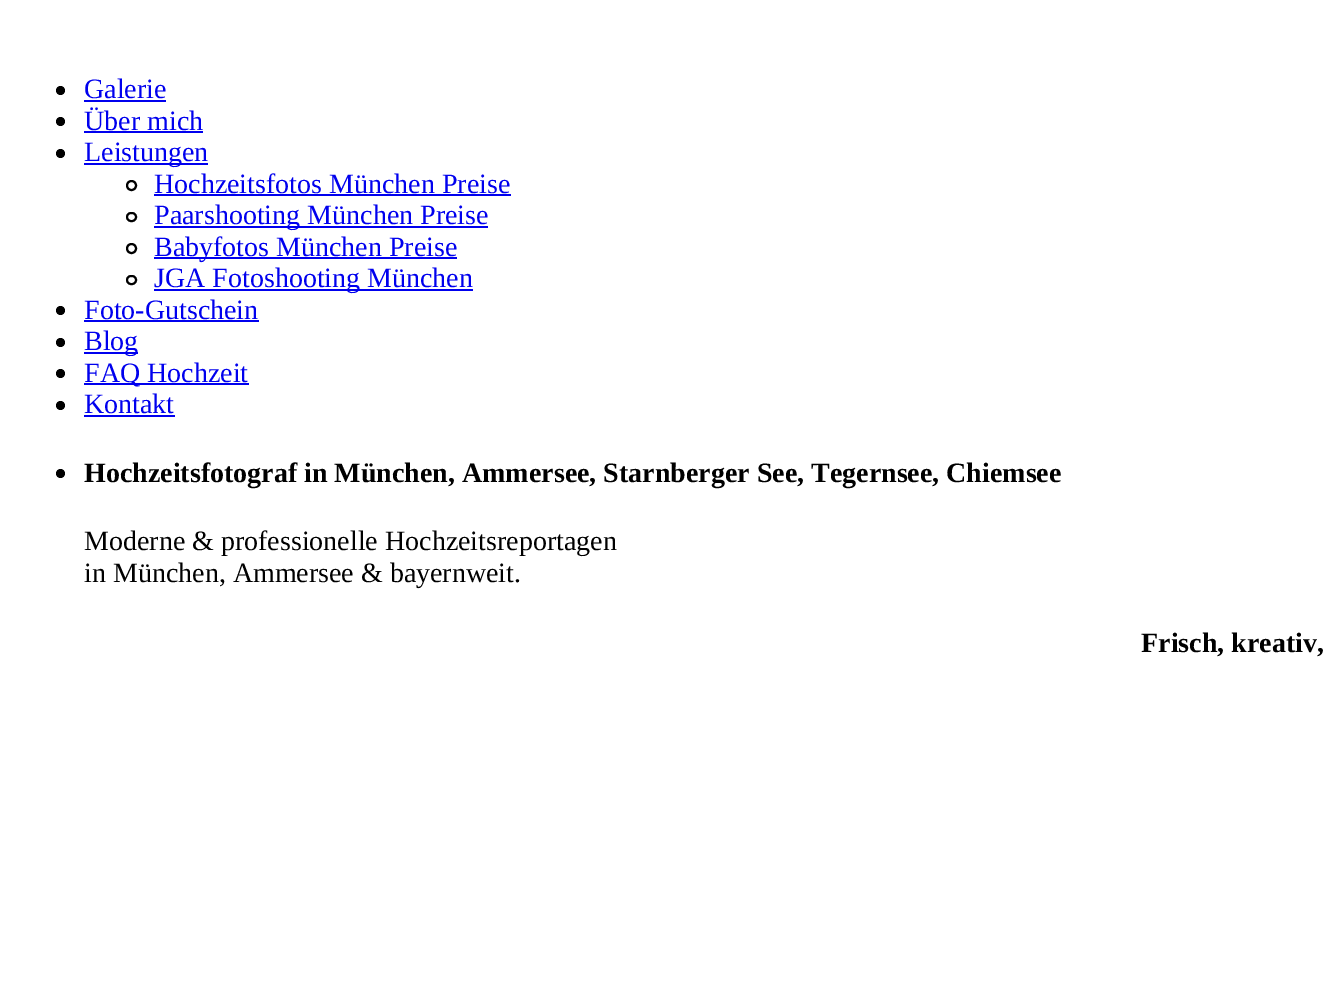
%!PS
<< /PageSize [1343 981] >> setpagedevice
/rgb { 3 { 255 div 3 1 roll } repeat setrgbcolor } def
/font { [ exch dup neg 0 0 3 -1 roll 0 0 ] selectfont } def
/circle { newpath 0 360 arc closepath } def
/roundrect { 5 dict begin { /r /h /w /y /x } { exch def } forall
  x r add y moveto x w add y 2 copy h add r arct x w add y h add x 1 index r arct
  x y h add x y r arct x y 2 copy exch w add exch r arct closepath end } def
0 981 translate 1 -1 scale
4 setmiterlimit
255 255 255 rgb
0 0 1343 981 rectfill
0 0 0 rgb
60.5 90.5 4.5 circle fill
0 0 238 rgb
84 100 82 2 rectfill
0 0 0 rgb
60.5 121.5 4.5 circle fill
0 0 238 rgb
84 131 119 2 rectfill
0 0 0 rgb
60.5 153.5 4.5 circle fill
0 0 238 rgb
84 163 124 2 rectfill
0 0 0 rgb
2 setlinewidth
131.5 185.5 4.5 circle stroke
0 0 238 rgb
154 194 357 2 rectfill
0 0 0 rgb
127 213 9 8 4 roundrect stroke
0 0 238 rgb
154 226 334 2 rectfill
0 0 0 rgb
131.5 248.5 4.5 circle stroke
0 0 238 rgb
154 257 303 2 rectfill
0 0 0 rgb
127 276 9 8 4 roundrect stroke
0 0 238 rgb
154 289 319 2 rectfill
0 0 0 rgb
60.5 310.5 4.5 circle fill
0 0 238 rgb
84 320 175 2 rectfill
0 0 0 rgb
60.5 342.5 4.5 circle fill
0 0 238 rgb
84 352 54 2 rectfill
0 0 0 rgb
60.5 373.5 4.5 circle fill
0 0 238 rgb
84 383 165 2 rectfill
0 0 0 rgb
60.5 405.5 4.5 circle fill
0 0 238 rgb
84 415 91 2 rectfill
0 0 0 rgb
60.5 473.5 4.5 circle fill
/LiberationSerif-Regular 28 font
0 0 238 rgb
[
  [(Galerie) 84 98]
  [(Über mich) 84 130]
  [(Leistungen) 84 161]
  [(Hochzeitsfotos München Preise) 154 193]
  [(Paarshooting München Preise) 154 224]
  [(Babyfotos München Preise) 154 256]
  [(JGA Fotoshooting München) 154 287]
  [(Foto-Gutschein) 84 319]
  [(Blog) 84 350]
  [(FAQ Hochzeit) 84 382]
  [(Kontakt) 84 413]
] { aload pop moveto show } forall
/LiberationSerif-Bold 28 font
0 0 0 rgb
84 482 moveto (Hochzeitsfotograf in München, Ammersee, Starnberger See, Tegernsee, Chiemsee) show
/LiberationSerif-Regular 28 font
84 550 moveto (Moderne & professionelle Hochzeitsreportagen) show
84 582 moveto (in München, Ammersee & bayernweit.) show
/LiberationSerif-Bold 28 font
1141 652 moveto (Frisch, kreativ,) show
showpage
